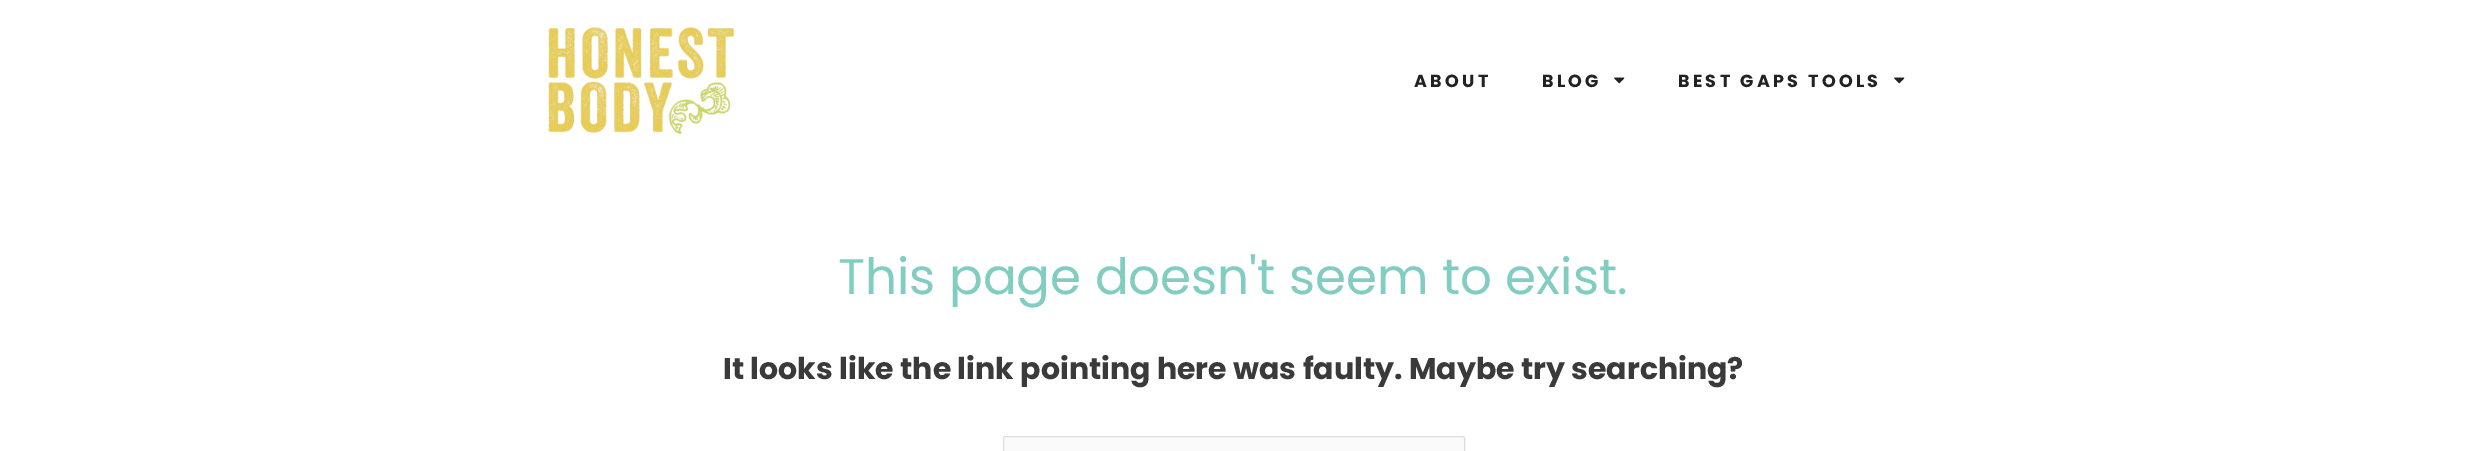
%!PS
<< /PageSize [2466 451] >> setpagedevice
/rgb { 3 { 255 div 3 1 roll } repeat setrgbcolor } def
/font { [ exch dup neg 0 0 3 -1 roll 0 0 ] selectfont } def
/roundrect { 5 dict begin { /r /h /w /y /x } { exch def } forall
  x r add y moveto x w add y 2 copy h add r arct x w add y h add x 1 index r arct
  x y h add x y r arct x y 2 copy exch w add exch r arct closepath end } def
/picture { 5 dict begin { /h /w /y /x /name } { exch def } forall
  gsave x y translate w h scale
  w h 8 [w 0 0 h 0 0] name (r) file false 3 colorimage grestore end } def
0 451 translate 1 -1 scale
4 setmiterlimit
255 255 255 rgb
0 0 2466 451 rectfill
(img/1.rgb) 548 27 186 107 picture
(img/2.rgb) 1614 77 11 7 picture
(img/2.rgb) 1894 77 11 7 picture
250 250 250 rgb
1003.5 436.5 461 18 2 roundrect gsave fill grestore
221 221 221 rgb
stroke
/Poppins-Bold 17.5 font
34 34 34 rgb
1414 87 moveto 3.25 0 (ABOUT) ashow
1542 87 moveto 3.25 0 (BLOG) ashow
1678 87 moveto 3.25 0 (BEST GAPS TOOLS) ashow
/Poppins-Regular 50 font
129 205 193 rgb
838 294 moveto (This page doesn't seem to exist.) show
/Poppins-Bold 30 font
58 58 58 rgb
723 379 moveto (It looks like the link pointing here was faulty. Maybe try searching?) show
showpage
